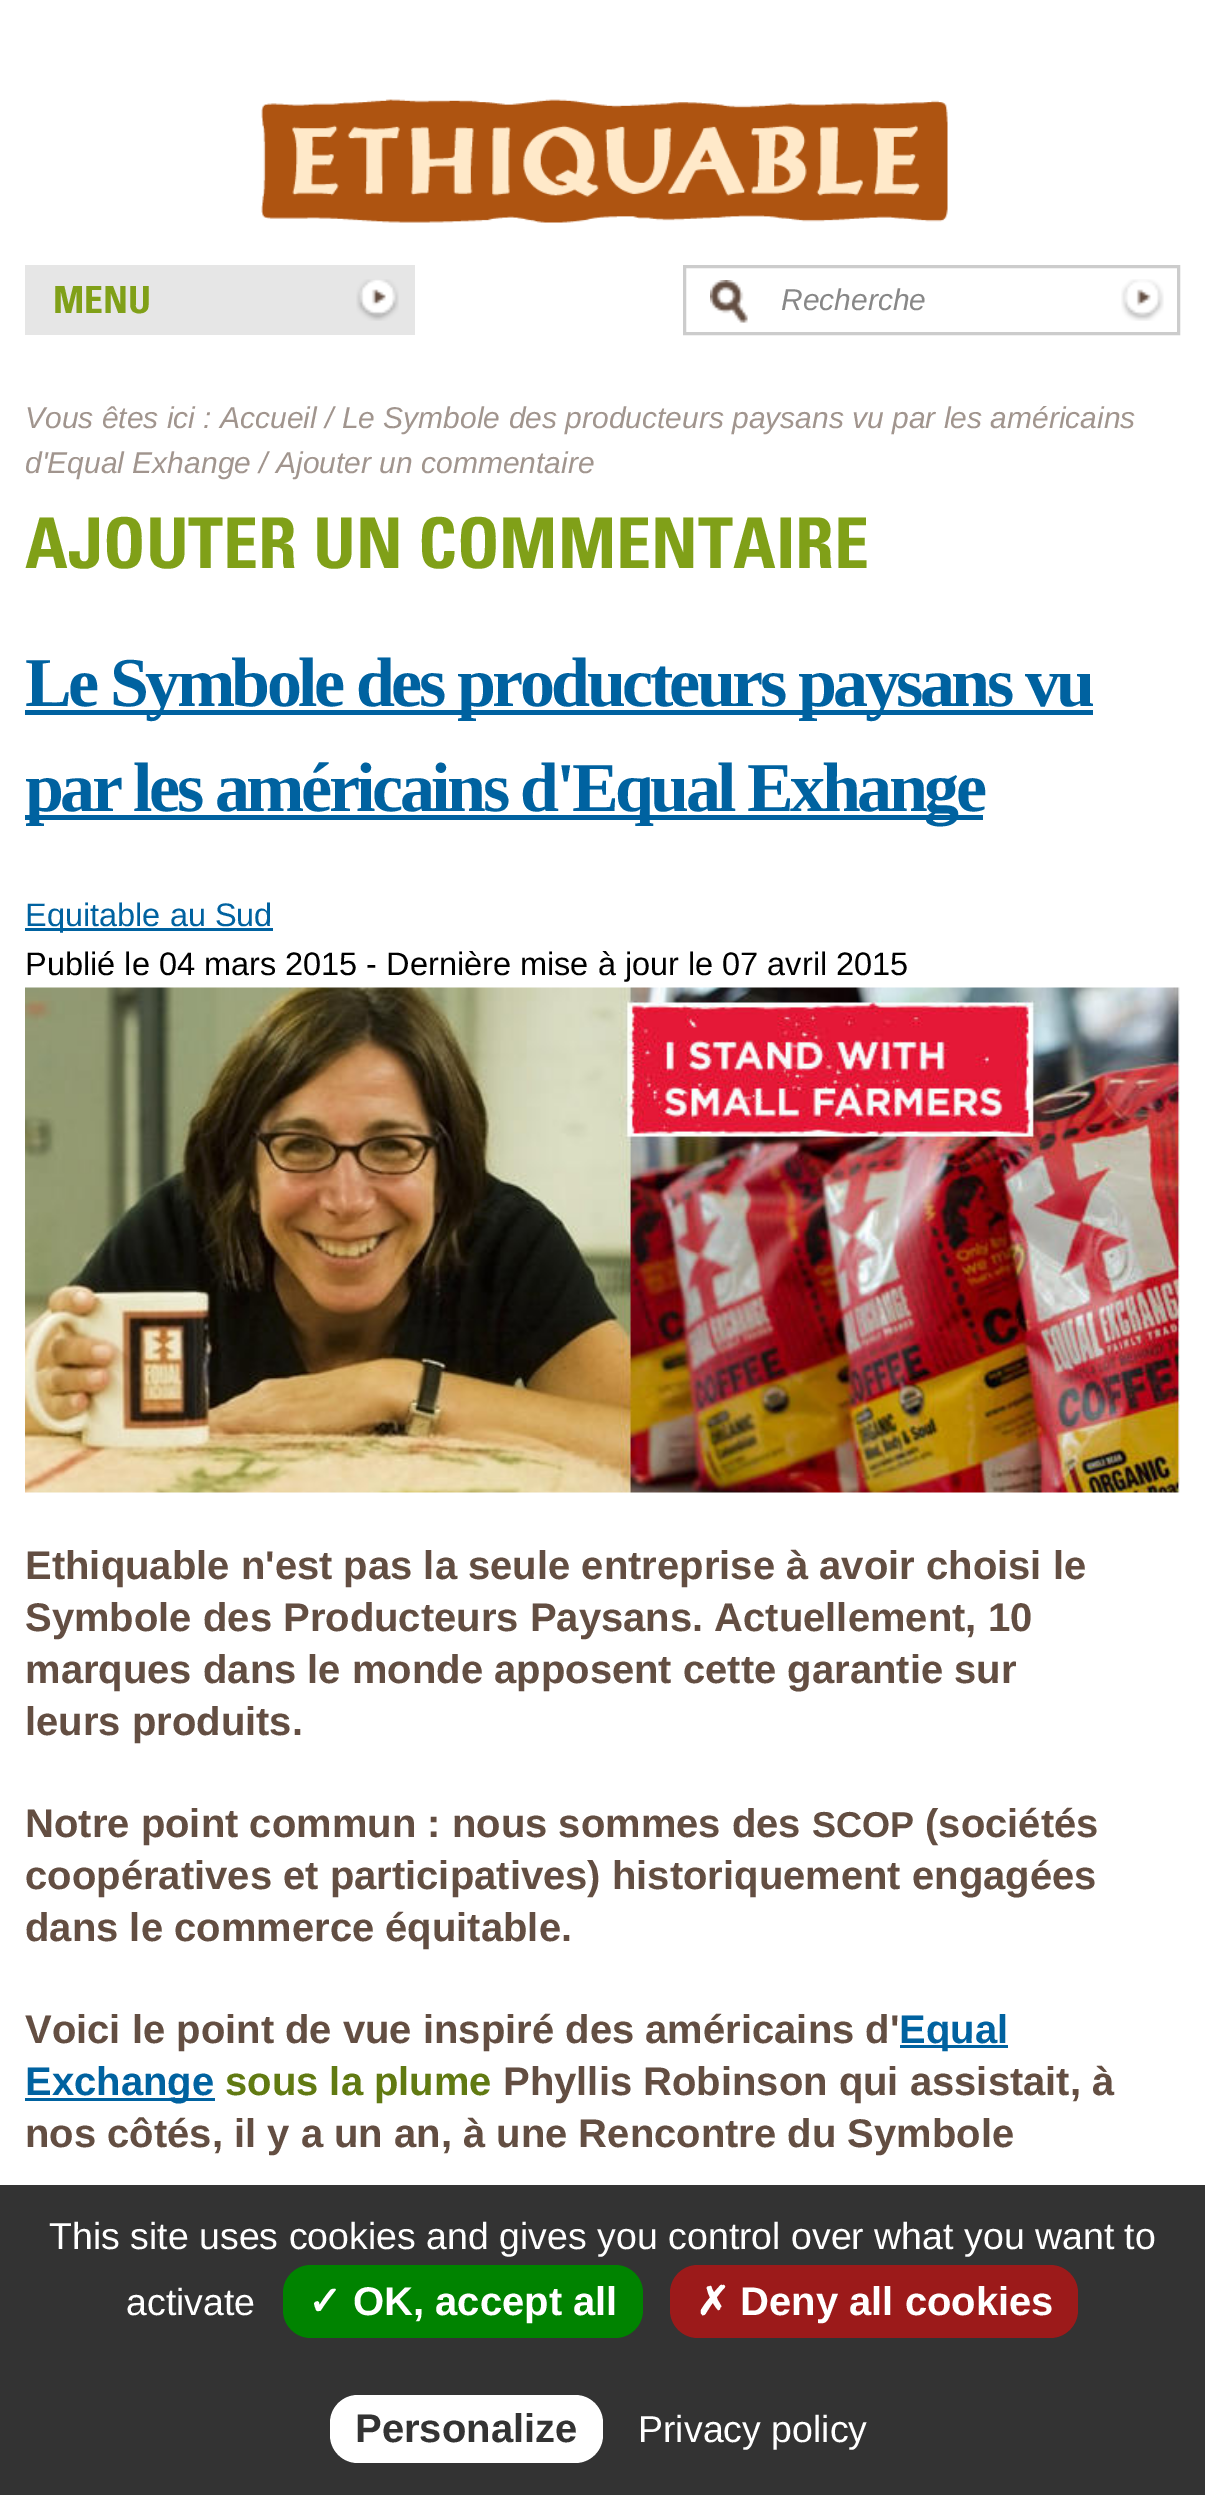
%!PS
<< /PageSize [1205 2495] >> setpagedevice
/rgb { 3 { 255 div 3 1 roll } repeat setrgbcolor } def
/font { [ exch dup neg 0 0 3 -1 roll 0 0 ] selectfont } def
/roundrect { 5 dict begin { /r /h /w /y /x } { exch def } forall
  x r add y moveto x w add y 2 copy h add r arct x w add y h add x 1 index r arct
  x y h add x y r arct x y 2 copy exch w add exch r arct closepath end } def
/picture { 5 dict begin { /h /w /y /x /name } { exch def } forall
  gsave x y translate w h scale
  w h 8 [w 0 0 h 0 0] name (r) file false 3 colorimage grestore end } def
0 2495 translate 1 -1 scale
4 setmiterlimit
255 255 255 rgb
0 0 1205 2495 rectfill
(img/1.rgb) 261 99 687 124 picture
230 230 230 rgb
25 265 390 70 rectfill
(img/2.rgb) 356 279 43 42 picture
(img/3.rgb) 710 280 38 43 picture
204 204 204 rgb
3 setlinewidth
684.5 266.5 494 67 rectstroke
(img/4.rgb) 1121 279 43 42 picture
[
  [25 710 1068 5 0 98 160]
  [25 815 958 5 0 98 160]
  [25 928 248 3 0 98 160]
] { aload pop rgb rectfill } forall
(img/5.rgb) 25 987 1155 506 picture
[
  [900 2045 108 3 0 98 160]
  [25 2098 190 3 0 98 160]
  [0 2185 1205 310 51 51 51]
] { aload pop rgb rectfill } forall
0 131 0 rgb
283 2265 360 73 28 roundrect fill
156 26 26 rgb
670 2265 408 73 28 roundrect fill
255 255 255 rgb
330 2395 273 68 28 roundrect fill
/Univers-Bold 37.5 font
128 160 24 rgb
53 313 moveto (MENU) show
/LiberationSans-Italic 30 font
136 136 136 rgb
781 310 moveto (Recherche) show
161 149 142 rgb
25 428 moveto (Vous êtes ici : Accueil / Le Symbole des producteurs paysans vu par les américains) show
25 473 moveto (d'Equal Exhange / Ajouter un commentaire) show
/Univers-Bold 70 font
128 160 24 rgb
25 568 moveto (AJOUTER UN COMMENTAIRE) show
/LiberationSerif-Bold 70 font
0 98 160 rgb
25 706 moveto -3.5 0 (Le Symbole des producteurs paysans vu) ashow
25 811 moveto -3.5 0 (par les américains d'Equal Exhange) ashow
/LiberationSans-Regular 32.5 font
25 926 moveto (Equitable au Sud) show
0 0 0 rgb
25 975 moveto (Publié le 04 mars 2015 - Dernière mise à jour le 07 avril 2015) show
/LiberationSans-Bold 40 font
99 78 66 rgb
[
  [(Ethiquable n'est pas la seule entreprise à avoir choisi le) 25 1579]
  [(Symbole des Producteurs Paysans. Actuellement, 10) 25 1631]
  [(marques dans le monde apposent cette garantie sur) 25 1683]
  [(leurs produits.) 25 1735]
  [(Notre point commun : nous sommes des) 25 1837]
] { aload pop moveto show } forall
/LiberationSans-Bold 36 font
812 1837 moveto (SCOP) show
/LiberationSans-Bold 40 font
[
  [(\(sociétés) 925 1837]
  [(coopératives et participatives\) historiquement engagées) 25 1889]
  [(dans le commerce équitable.) 25 1941]
  [(Voici le point de vue inspiré des américains d') 25 2043]
] { aload pop moveto show } forall
0 98 160 rgb
899 2043 moveto (Equal) show
25 2095 moveto (Exchange) show
97 122 18 rgb
225 2095 moveto (sous la plume) show
99 78 66 rgb
503 2095 moveto (Phyllis Robinson qui assistait, à) show
25 2147 moveto (nos côtés, il y a un an, à une Rencontre du Symbole) show
/LiberationSans-Regular 37.5 font
255 255 255 rgb
49 2249 moveto (This site uses cookies and gives you control over what you want to) show
126 2315 moveto (activate) show
/DejaVuSans-Bold 40 font
308 2315 moveto (✓) show
/LiberationSans-Bold 40 font
353 2315 moveto (OK, accept all) show
/DejaVuSans-Bold 40 font
696 2315 moveto (✗) show
/LiberationSans-Bold 40 font
740 2315 moveto (Deny all cookies) show
51 51 51 rgb
355 2442 moveto (Personalize) show
/LiberationSans-Regular 37.5 font
255 255 255 rgb
638 2442 moveto (Privacy policy) show
showpage
